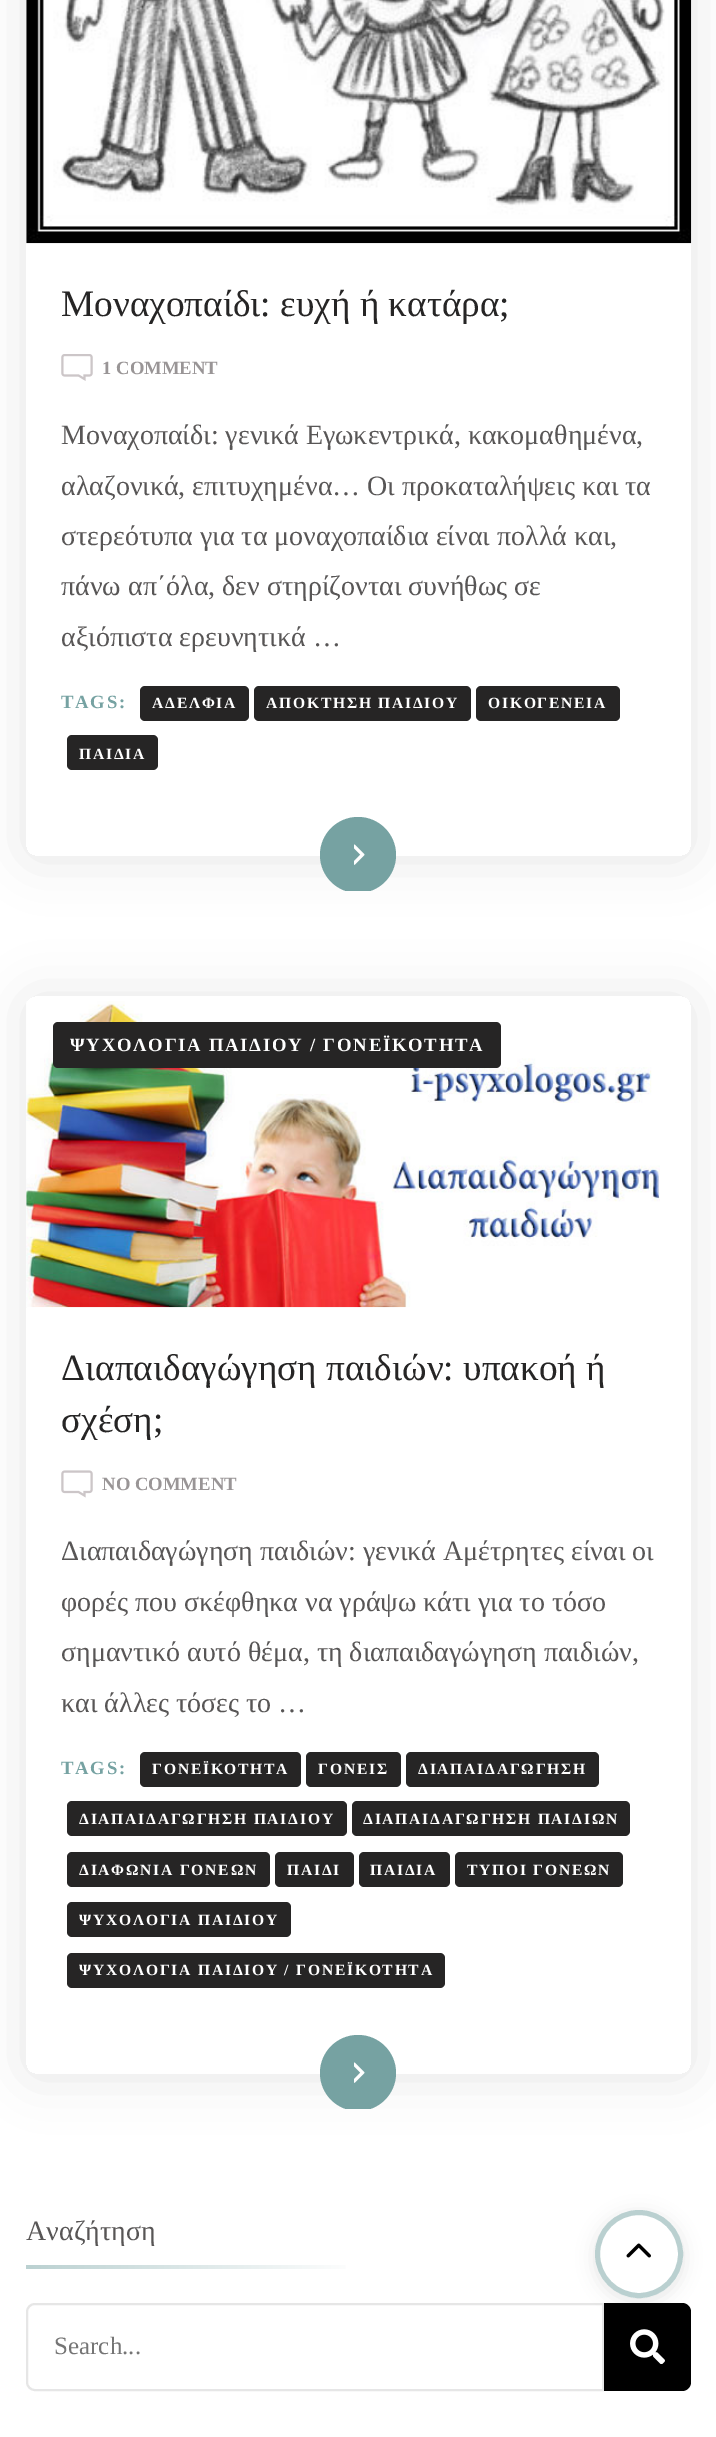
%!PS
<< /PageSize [716 2437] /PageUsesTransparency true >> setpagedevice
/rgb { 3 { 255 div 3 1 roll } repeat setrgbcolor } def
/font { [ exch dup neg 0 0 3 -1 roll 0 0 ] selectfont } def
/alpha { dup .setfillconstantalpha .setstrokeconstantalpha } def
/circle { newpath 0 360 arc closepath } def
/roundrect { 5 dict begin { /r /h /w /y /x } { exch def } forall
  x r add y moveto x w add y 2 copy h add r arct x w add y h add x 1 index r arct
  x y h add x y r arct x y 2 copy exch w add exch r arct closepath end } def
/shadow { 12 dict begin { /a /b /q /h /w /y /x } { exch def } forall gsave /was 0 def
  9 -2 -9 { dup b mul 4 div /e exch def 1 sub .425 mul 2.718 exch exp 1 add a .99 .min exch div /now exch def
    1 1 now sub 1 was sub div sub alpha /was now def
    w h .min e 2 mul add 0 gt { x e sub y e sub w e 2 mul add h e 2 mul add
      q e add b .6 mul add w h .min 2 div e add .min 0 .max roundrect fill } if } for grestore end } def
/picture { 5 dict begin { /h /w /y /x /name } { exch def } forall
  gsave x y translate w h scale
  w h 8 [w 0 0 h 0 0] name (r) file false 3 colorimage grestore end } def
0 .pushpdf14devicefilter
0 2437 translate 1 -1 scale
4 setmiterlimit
255 255 255 rgb
0 0 716 2437 rectfill
gsave
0 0 moveto 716 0 lineto 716 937 lineto 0 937 lineto closepath 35 -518 moveto 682 -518 lineto 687 -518 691 -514 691 -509 curveto 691 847 lineto 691 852 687 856 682 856 curveto 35 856 lineto 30 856 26 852 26 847 curveto 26 -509 lineto 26 -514 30 -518 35 -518 curveto closepath eoclip newpath
0 0 0 rgb
26 -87 665 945 9 26 0.1 shadow
grestore
(img/1.rgb) 26 0 666 244 picture
(img/2.rgb) 61 354 32 27 picture
38 37 37 rgb
140 686 109 35 5 roundrect fill
254 686 217 35 5 roundrect fill
476 686 144 35 5 roundrect fill
67 735 91 35 5 roundrect fill
gsave
205 816 306 75 37.5 roundrect clip newpath
118 162 162 rgb
358 855 38 circle fill
grestore
(img/3.rgb) 354 844 11 21 picture
gsave
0 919 moveto 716 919 lineto 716 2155 lineto 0 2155 lineto closepath 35 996 moveto 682 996 lineto 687 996 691 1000 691 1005 curveto 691 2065 lineto 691 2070 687 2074 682 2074 curveto 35 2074 lineto 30 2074 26 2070 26 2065 curveto 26 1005 lineto 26 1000 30 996 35 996 curveto closepath eoclip newpath
0 0 0 rgb
26 998 665 1078 9 26 0.1 shadow
grestore
(img/4.rgb) 26 1001 634 307 picture
53 1022 448 46 5 roundrect fill
(img/5.rgb) 61 1470 32 28 picture
140 1752 161 35 5 roundrect fill
306 1752 95 35 5 roundrect fill
406 1752 193 35 5 roundrect fill
67 1801 280 35 5 roundrect fill
352 1801 278 35 5 roundrect fill
67 1852 203 35 5 roundrect fill
275 1852 79 35 5 roundrect fill
359 1852 91 35 5 roundrect fill
455 1852 168 35 5 roundrect fill
67 1902 224 35 5 roundrect fill
67 1953 378 35 5 roundrect fill
gsave
205 2034 306 75 37.5 roundrect clip newpath
118 162 162 rgb
358 2073 38 circle fill
grestore
(img/3.rgb) 354 2062 11 21 picture
gsave 26 2265 moveto 346 2265 lineto 346 2269 lineto 26 2269 lineto closepath clip newpath
<< /ShadingType 2 /ColorSpace /DeviceRGB /Coords [26 2266 691 2266] /Extend [true true] /Function << /FunctionType 3 /Domain [0 1] /Functions [<< /FunctionType 2 /Domain [0 1] /C0 [0.733 0.82 0.82] /C1 [1 1 1] /N 1 >> << /FunctionType 2 /Domain [0 1] /C0 [1 1 1] /C1 [1 1 1] /N 1 >>] /Bounds [0.5] /Encode [0 1 0 1] >> >> shfill grestore
230 230 230 rgb
2 setlinewidth
35 2304 moveto 603 2304 lineto 603 2390 lineto 35 2390 lineto 30.5 2390 27 2386.5 27 2382 curveto 27 2312 lineto 27 2307.5 30.5 2304 35 2304 curveto closepath stroke
0 0 0 rgb
604 2303 moveto 682 2303 lineto 687 2303 691 2307 691 2312 curveto 691 2382 lineto 691 2387 687 2391 682 2391 curveto 604 2391 lineto closepath fill
(img/6.rgb) 630 2329 35 35 picture
595 2214 88 87 43.5 9 0.1 shadow
255 255 255 rgb
639 2254 44 circle fill
0.5 alpha
118 162 162 rgb
5 setlinewidth
639 2254 41.5 circle stroke
1 alpha
(img/7.rgb) 626 2243 25 15 picture
/LiberationSerif-Regular 37.3 font
38 37 37 rgb
61 316 moveto (Μοναχοπαίδι: ευχή ή κατάρα;) show
/LiberationSerif-Bold 18.7 font
153 149 150 rgb
102 374 moveto (1 COMMENT) show
/LiberationSerif-Regular 28 font
88 86 86 rgb
[
  [(Μοναχοπαίδι: γενικά Εγωκεντρικά, κακομαθημένα,) 61 444]
  [(αλαζονικά, επιτυχημένα… Οι προκαταλήψεις και τα) 61 495]
  [(στερεότυπα για τα μοναχοπαίδια είναι πολλά και,) 61 545]
  [(πάνω απ΄όλα, δεν στηρίζονται συνήθως σε) 61 595]
  [(αξιόπιστα ερευνητικά …) 61 646]
] { aload pop moveto show } forall
/LiberationSerif-Bold 18.7 font
118 162 162 rgb
61 708 moveto 1.75 0 (TAGS:) ashow
/LiberationSerif-Bold 15.6 font
255 255 255 rgb
152 708 moveto 1.75 0 (ΑΔΕΛΦΙΑ) ashow
266 708 moveto 1.75 0 (ΑΠΟΚΤΗΣΗ ΠΑΙΔΙΟΥ) ashow
488 708 moveto 1.75 0 (ΟΙΚΟΓΕΝΕΙΑ) ashow
79 759 moveto 1.75 0 (ΠΑΙΔΙΑ) ashow
/LiberationSerif-Bold 18.7 font
70 1051 moveto 1.75 0 (ΨΥΧΟΛΟΓΙΑ ΠΑΙΔΙΟΥ / ΓΟΝΕΪΚΟΤΗΤΑ) ashow
/LiberationSerif-Regular 37.3 font
38 37 37 rgb
61 1380 moveto (Διαπαιδαγώγηση παιδιών: υπακοή ή) show
61 1432 moveto (σχέση;) show
/LiberationSerif-Bold 18.7 font
153 149 150 rgb
102 1490 moveto (NO COMMENT) show
/LiberationSerif-Regular 28 font
88 86 86 rgb
[
  [(Διαπαιδαγώγηση παιδιών: γενικά Αμέτρητες είναι οι) 61 1560]
  [(φορές που σκέφθηκα να γράψω κάτι για το τόσο) 61 1611]
  [(σημαντικό αυτό θέμα, τη διαπαιδαγώγηση παιδιών,) 61 1661]
  [(και άλλες τόσες το …) 61 1712]
] { aload pop moveto show } forall
/LiberationSerif-Bold 18.7 font
118 162 162 rgb
61 1774 moveto 1.75 0 (TAGS:) ashow
/LiberationSerif-Bold 15.6 font
255 255 255 rgb
152 1774 moveto 1.75 0 (ΓΟΝΕΪΚΟΤΗΤΑ) ashow
318 1774 moveto 1.75 0 (ΓΟΝΕΙΣ) ashow
418 1774 moveto 1.75 0 (ΔΙΑΠΑΙΔΑΓΩΓΗΣΗ) ashow
79 1824 moveto 1.75 0 (ΔΙΑΠΑΙΔΑΓΩΓΗΣΗ ΠΑΙΔΙΟΥ) ashow
363 1824 moveto 1.75 0 (ΔΙΑΠΑΙΔΑΓΩΓΗΣΗ ΠΑΙΔΙΩΝ) ashow
79 1875 moveto 1.75 0 (ΔΙΑΦΩΝΙΑ ΓΟΝΕΩΝ) ashow
287 1875 moveto 1.75 0 (ΠΑΙΔΙ) ashow
370 1875 moveto 1.75 0 (ΠΑΙΔΙΑ) ashow
467 1875 moveto 1.75 0 (ΤΥΠΟΙ ΓΟΝΕΩΝ) ashow
79 1925 moveto 1.75 0 (ΨΥΧΟΛΟΓΙΑ ΠΑΙΔΙΟΥ) ashow
79 1975 moveto 1.75 0 (ΨΥΧΟΛΟΓΙΑ ΠΑΙΔΙΟΥ / ΓΟΝΕΪΚΟΤΗΤΑ) ashow
/LiberationSerif-Regular 28 font
88 86 86 rgb
26 2240 moveto (Αναζήτηση) show
/LiberationSerif-Regular 25 font
117 117 117 rgb
54 2354 moveto (Search...) show
.poppdf14devicefilter showpage
